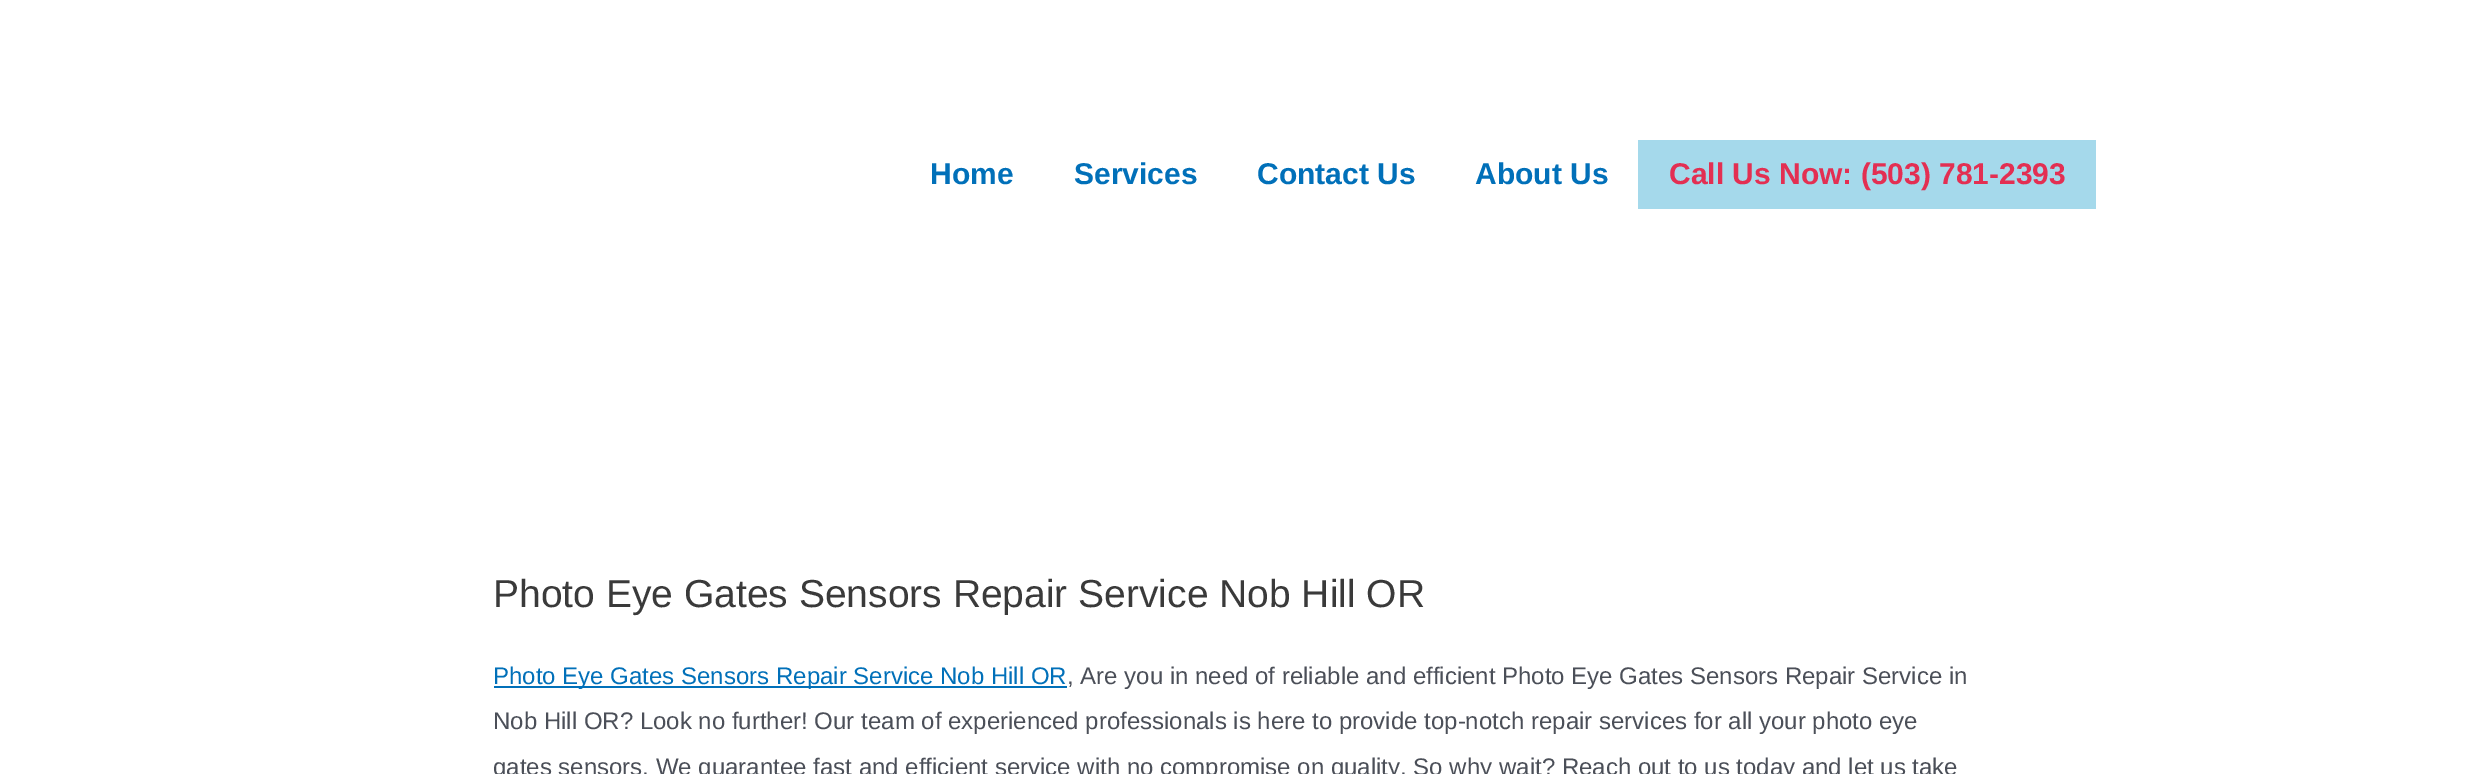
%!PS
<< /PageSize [2465 774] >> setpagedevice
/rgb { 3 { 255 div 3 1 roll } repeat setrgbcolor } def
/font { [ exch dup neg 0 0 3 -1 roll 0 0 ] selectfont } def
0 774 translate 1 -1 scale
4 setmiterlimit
255 255 255 rgb
0 0 2465 774 rectfill
165 217 235 rgb
1638 140 458 69 rectfill
1 112 185 rgb
494 686 573 2 rectfill
/LiberationSans-Bold 30 font
[
  [(Home) 930 184]
  [(Services) 1074 184]
  [(Contact Us) 1257 184]
  [(About Us) 1475 184]
] { aload pop moveto show } forall
227 47 82 rgb
1669 184 moveto (Call Us Now: \(503\) 781-2393) show
/LiberationSans-Regular 39 font
58 58 58 rgb
493 607 moveto (Photo Eye Gates Sensors Repair Service Nob Hill OR) show
/LiberationSans-Regular 24 font
1 112 185 rgb
493 684 moveto (Photo Eye Gates Sensors Repair Service Nob Hill OR) show
75 79 88 rgb
[
  [(, Are you in need of reliable and efficient Photo Eye Gates Sensors Repair Service in) 1067 684]
  [(Nob Hill OR? Look no further! Our team of experienced professionals is here to provide top-notch repair services for all your photo eye) 493 729]
  [(gates sensors. We guarantee fast and efficient service with no compromise on quality. So why wait? Reach out to us today and let us take) 493 775]
] { aload pop moveto show } forall
showpage
